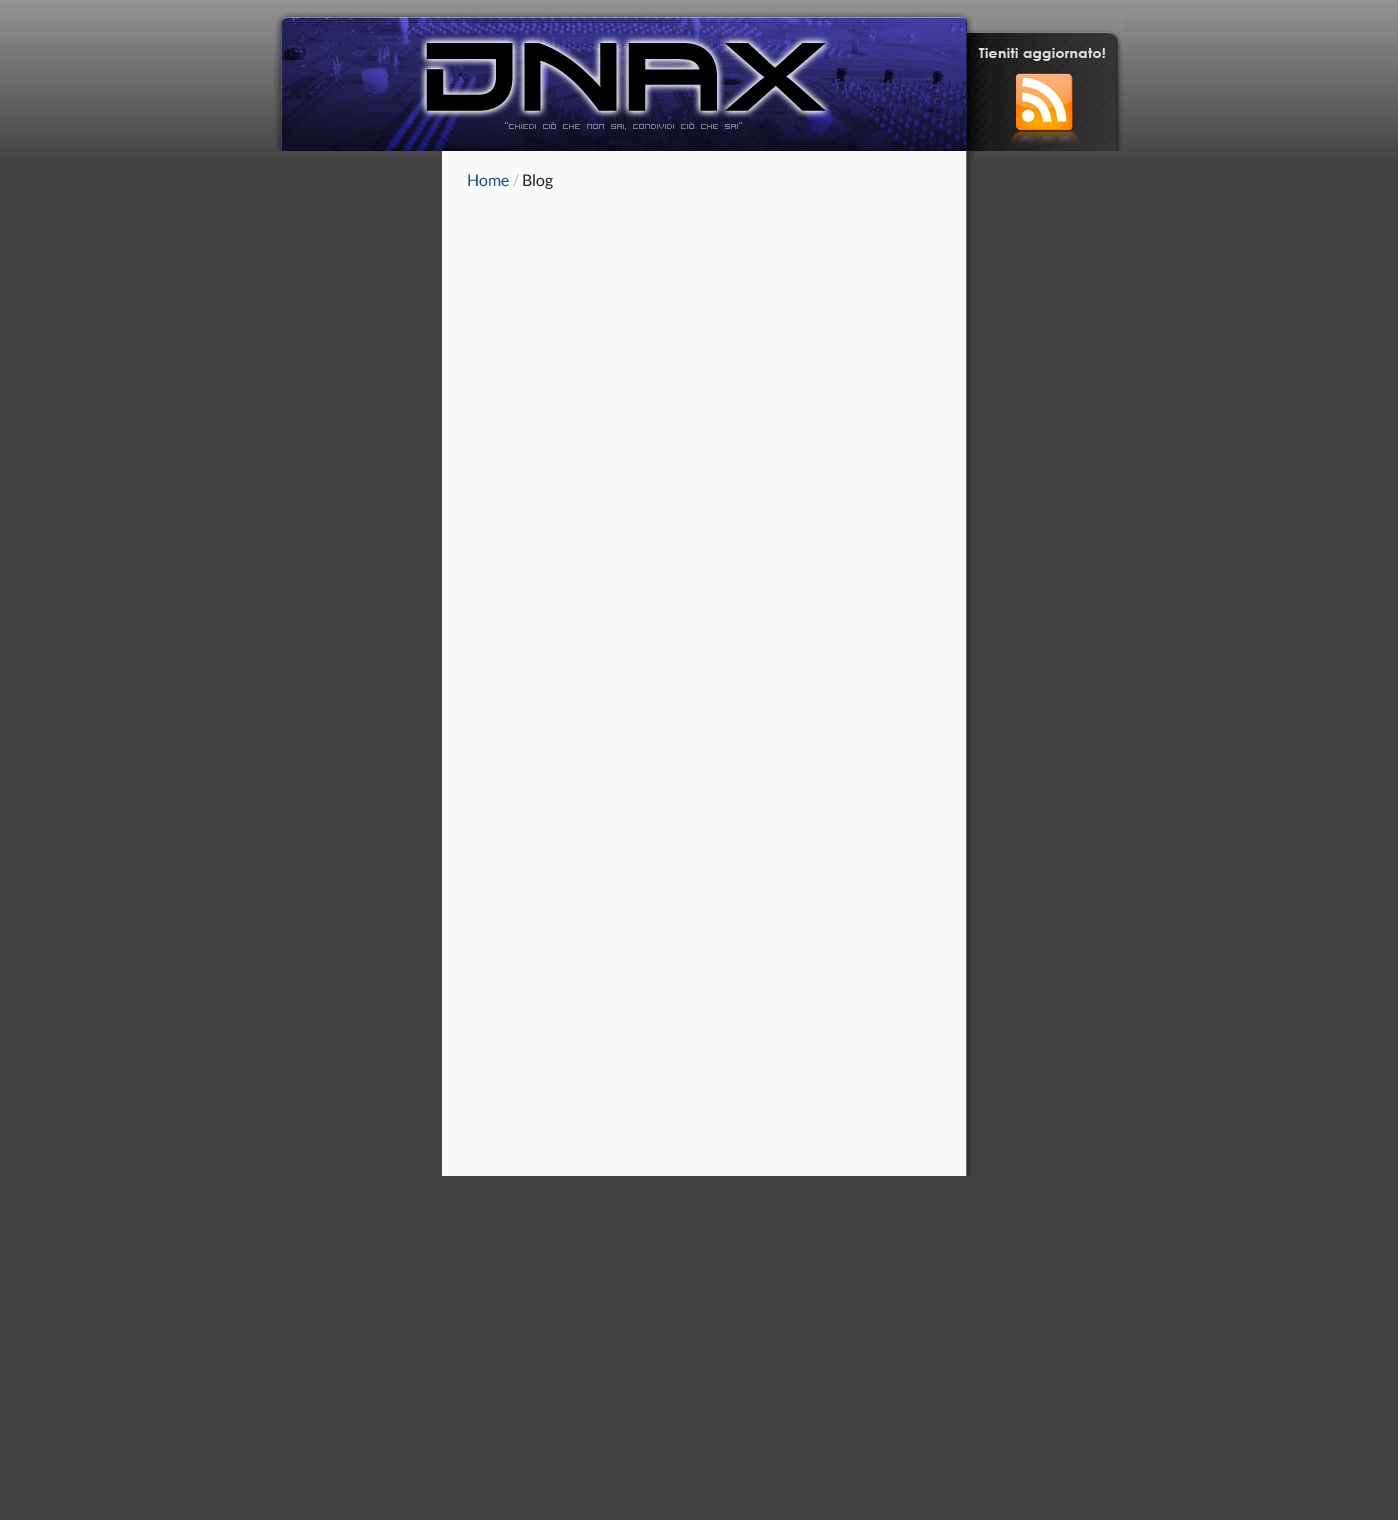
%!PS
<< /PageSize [1398 1520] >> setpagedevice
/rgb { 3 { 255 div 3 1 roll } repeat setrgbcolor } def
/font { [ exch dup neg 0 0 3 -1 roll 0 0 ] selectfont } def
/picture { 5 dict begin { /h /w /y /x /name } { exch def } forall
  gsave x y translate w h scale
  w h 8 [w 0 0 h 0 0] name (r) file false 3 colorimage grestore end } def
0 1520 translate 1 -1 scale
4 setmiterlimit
66 66 66 rgb
0 0 1398 1520 rectfill
gsave 0 0 moveto 1398 0 lineto 1398 162 lineto 0 162 lineto closepath clip newpath
<< /ShadingType 2 /ColorSpace /DeviceRGB /Coords [699 0 699 167] /Extend [true true] /Function << /FunctionType 2 /Domain [0 1] /C0 [0.58 0.58 0.58] /C1 [0.259 0.259 0.259] /N 1 >> >> shfill grestore
(img/1.rgb) 274 10 693 141 picture
(img/2.rgb) 967 14 157 137 picture
250 250 250 rgb
442 151 524 1025 rectfill
(img/3.rgb) 966 151 9 1025 picture
/Lato-Regular 16 font
28 78 145 rgb
467 186 moveto (Home) show
187 187 187 rgb
513 186 moveto (/) show
34 34 34 rgb
522 186 moveto (Blog) show
showpage
